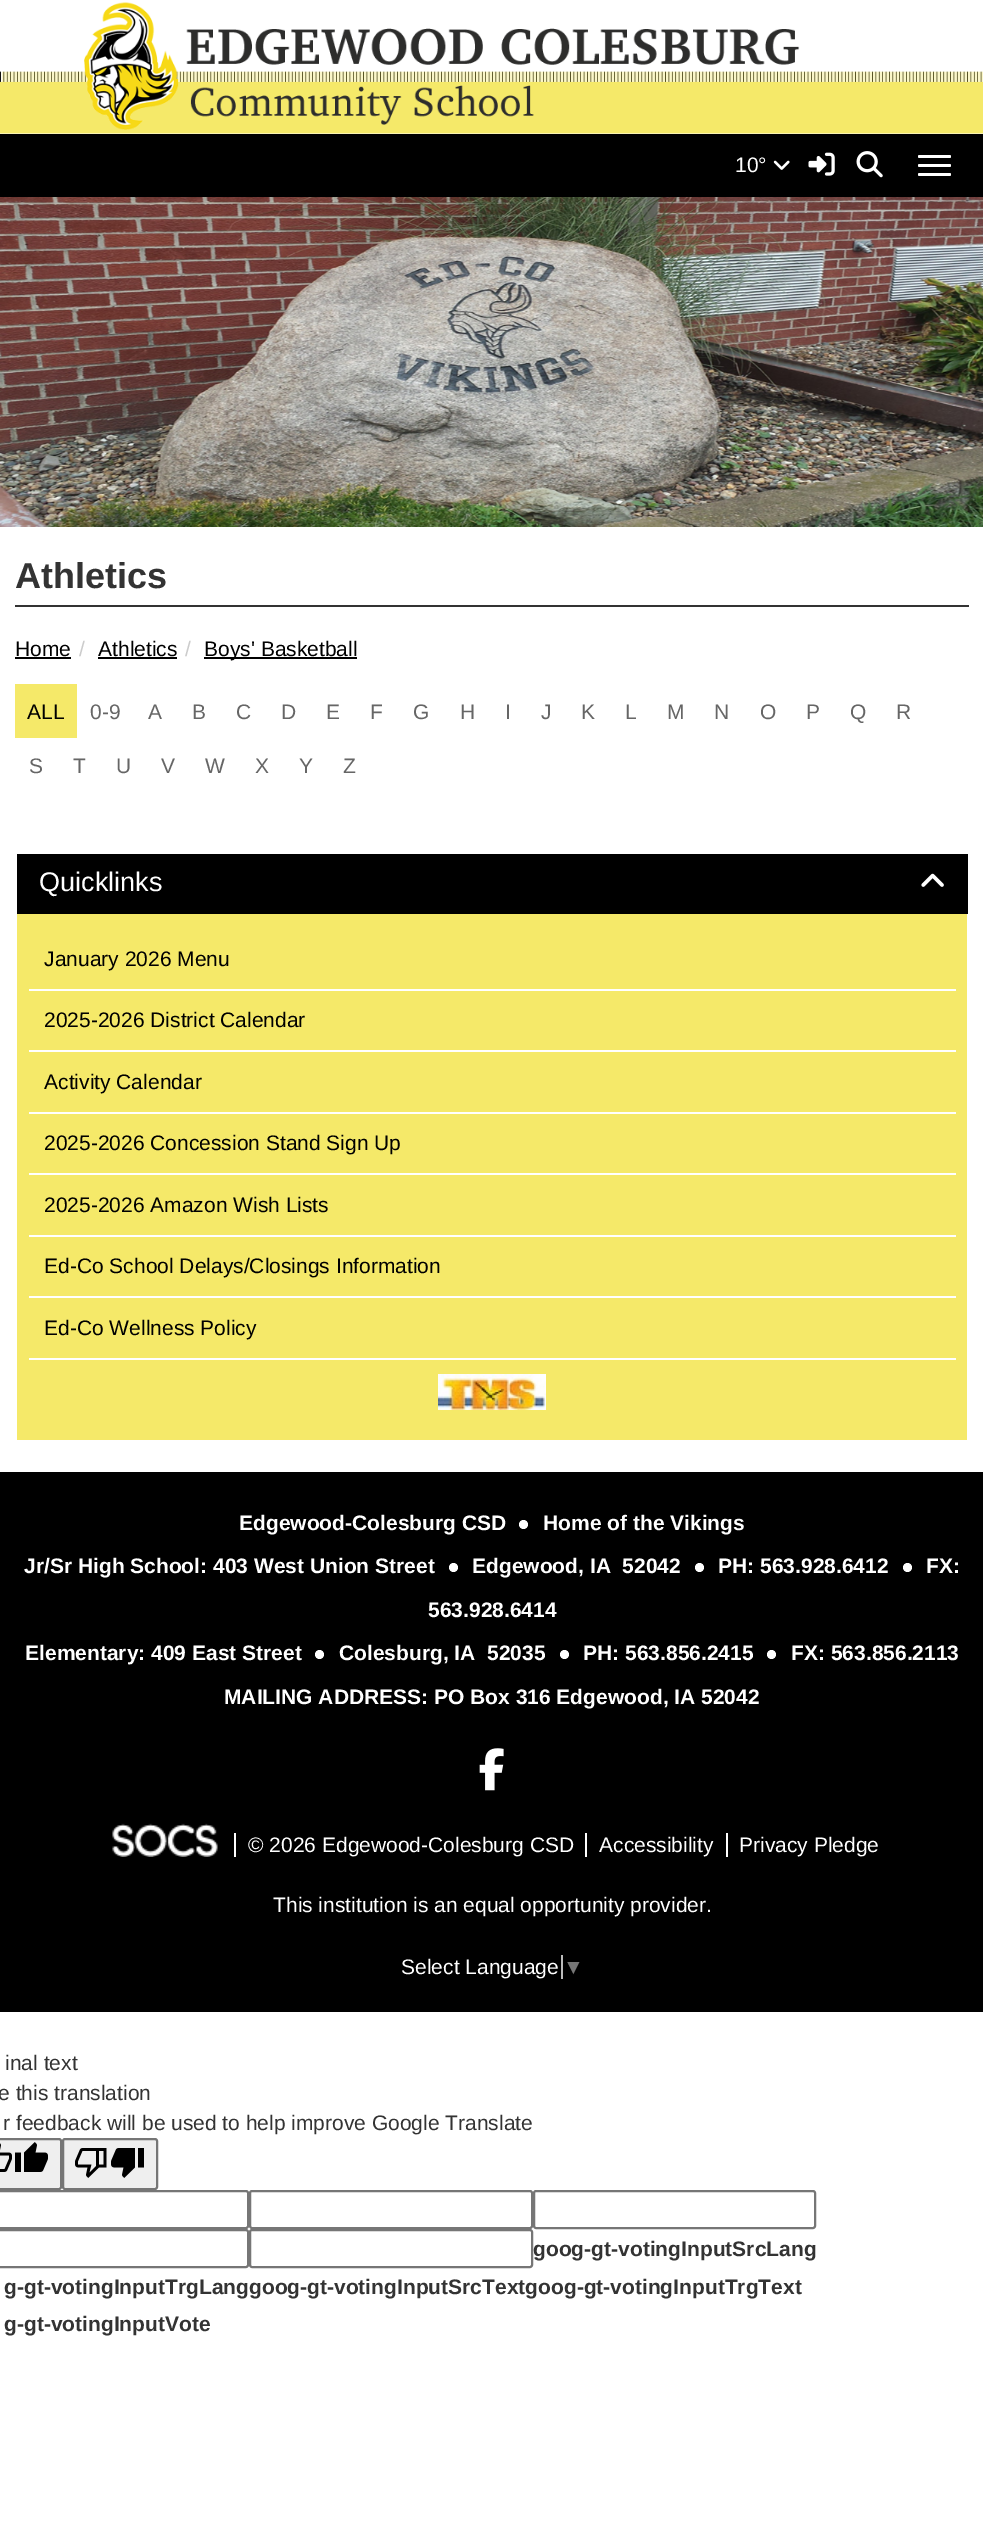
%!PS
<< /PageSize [983 2522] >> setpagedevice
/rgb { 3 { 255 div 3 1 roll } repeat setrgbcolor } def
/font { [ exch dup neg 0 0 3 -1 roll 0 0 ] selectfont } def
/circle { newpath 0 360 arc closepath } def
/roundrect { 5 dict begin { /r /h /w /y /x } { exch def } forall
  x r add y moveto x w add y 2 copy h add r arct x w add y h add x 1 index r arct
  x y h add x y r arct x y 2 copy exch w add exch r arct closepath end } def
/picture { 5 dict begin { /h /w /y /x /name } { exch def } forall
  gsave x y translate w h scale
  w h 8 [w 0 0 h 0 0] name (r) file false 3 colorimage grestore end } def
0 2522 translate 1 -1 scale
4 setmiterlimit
255 255 255 rgb
0 0 983 2522 rectfill
(img/1.rgb) 0 71 983 63 picture
(img/2.rgb) 84 2 716 128 picture
0 0 0 rgb
0 134 983 63 rectfill
(img/3.rgb) 773 160 17 10 picture
(img/4.rgb) 808 152 27 24 picture
(img/5.rgb) 856 151 27 27 picture
255 255 255 rgb
918 155 33 3 1.5 roundrect fill
918 164 33 3 1.5 roundrect fill
918 173 33 3 1.5 roundrect fill
(img/6.rgb) 0 197 983 330 picture
[
  [15 605 954 2 51 51 51]
  [15 657 56 2 0 0 0]
  [98 657 79 2 0 0 0]
  [204 657 153 2 0 0 0]
  [15 684 62 54 245 233 105]
  [17 914 950 526 245 233 105]
  [17 854 951 60 0 0 0]
] { aload pop rgb rectfill } forall
(img/7.rgb) 921 873 23 14 picture
[
  [29 989 927 2 255 255 255]
  [29 1050 927 2 255 255 255]
  [29 1112 927 2 255 255 255]
  [29 1173 927 2 255 255 255]
  [29 1235 927 2 255 255 255]
  [29 1296 927 2 255 255 255]
  [29 1358 927 2 255 255 255]
] { aload pop rgb rectfill } forall
(img/8.rgb) 438 1374 108 36 picture
0 0 0 rgb
0 1472 983 540 rectfill
255 255 255 rgb
523.5 1524.5 4.5 circle fill
453.5 1567.5 4.5 circle fill
907.5 1567.5 4.5 circle fill
699.5 1567.5 4.5 circle fill
319.5 1654.5 4.5 circle fill
771.5 1654.5 4.5 circle fill
564.5 1654.5 4.5 circle fill
(img/9.rgb) 479 1748 25 43 picture
(img/10.rgb) 112 1823 106 34 picture
[
  [234 1833 2 24 255 255 255]
  [585 1833 2 24 255 255 255]
  [726 1833 2 24 255 255 255]
  [561 1955 2 24 187 187 187]
] { aload pop rgb rectfill } forall
239 239 239 rgb
-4 2139 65 50 2 roundrect gsave fill grestore
118 118 118 rgb
2 setlinewidth
stroke
(img/11.rgb) 0 2143 12 29 picture
(img/12.rgb) 15 2142 33 30 picture
239 239 239 rgb
63 2139 94 50 2 roundrect gsave fill grestore
118 118 118 rgb
stroke
(img/13.rgb) 75 2148 32 30 picture
(img/14.rgb) 111 2148 33 30 picture
-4 2191 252 37 2 roundrect stroke
250 2191 282 37 2 roundrect stroke
534 2191 281 37 2 roundrect stroke
-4 2230 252 37 2 roundrect stroke
250 2230 282 37 2 roundrect stroke
/LiberationSans-Regular 21 font
255 255 255 rgb
735 172 moveto (10°) show
/LiberationSans-Bold 36 font
51 51 51 rgb
15 588 moveto (Athletics) show
/LiberationSans-Regular 21 font
0 0 0 rgb
15 656 moveto (Home) show
204 204 204 rgb
79 656 moveto (/) show
0 0 0 rgb
98 656 moveto (Athletics) show
204 204 204 rgb
185 656 moveto (/) show
0 0 0 rgb
204 656 moveto (Boys' Basketball) show
27 719 moveto (ALL) show
102 102 102 rgb
[
  [(0-9) 90 719]
  [(A) 148 719]
  [(B) 192 719]
  [(C) 236 719]
  [(D) 281 719]
  [(E) 326 719]
  [(F) 370 719]
  [(G) 413 719]
  [(H) 460 719]
  [(I) 505 719]
  [(J) 541 719]
  [(K) 581 719]
  [(L) 625 719]
  [(M) 667 719]
  [(N) 714 719]
  [(O) 760 719]
  [(P) 806 719]
  [(Q) 850 719]
  [(R) 896 719]
  [(S) 29 773]
  [(T) 73 773]
  [(U) 116 773]
  [(V) 161 773]
  [(W) 205 773]
  [(X) 255 773]
  [(Y) 299 773]
  [(Z) 343 773]
] { aload pop moveto show } forall
/LiberationSans-Regular 27 font
255 255 255 rgb
39 891 moveto (Quicklinks) show
/LiberationSans-Regular 21 font
0 0 0 rgb
[
  [(January 2026 Menu) 44 966]
  [(2025-2026 District Calendar) 44 1027]
  [(Activity Calendar) 44 1089]
  [(2025-2026 Concession Stand Sign Up) 44 1150]
  [(2025-2026 Amazon Wish Lists) 44 1212]
  [(Ed-Co School Delays/Closings Information) 44 1273]
  [(Ed-Co Wellness Policy) 44 1335]
] { aload pop moveto show } forall
/LiberationSans-Bold 21 font
255 255 255 rgb
[
  [(Home of the Vikings) 543 1530]
  [(Jr/Sr High School: 403 West Union Street) 24 1573]
  [(Edgewood-Colesburg CSD) 239 1530]
  [(Edgewood, IA  52042) 472 1573]
  [(FX:) 926 1573]
  [(563.928.6414) 428 1617]
  [(Elementary: 409 East Street) 25 1660]
  [(PH: 563.928.6412) 718 1573]
  [(Colesburg, IA  52035) 339 1660]
  [(FX: 563.856.2113) 791 1660]
  [(MAILING ADDRESS: PO Box 316 Edgewood, IA 52042) 224 1704]
  [(PH: 563.856.2415) 583 1660]
] { aload pop moveto show } forall
/LiberationSans-Regular 21 font
[
  [(© 2026 Edgewood-Colesburg CSD) 248 1852]
  [(Accessibility) 599 1852]
  [(Privacy Pledge) 739 1852]
  [(This institution is an equal opportunity provider.) 273 1912]
  [(Select Language) 401 1974]
] { aload pop moveto show } forall
118 118 118 rgb
563 1974 moveto (▼) show
51 51 51 rgb
[
  [(inal text) 5 2070]
  [(e this translation) -2 2100]
  [(r feedback will be used to help improve Google Translate) 3 2130]
] { aload pop moveto show } forall
/LiberationSans-Bold 21 font
[
  [(goog-gt-votingInputSrcLang) 533 2256]
  [(g-gt-votingInputTrgLanggoog-gt-votingInputSrcTextgoog-gt-votingInputTrgText) 4 2294]
  [(g-gt-votingInputVote) 4 2331]
] { aload pop moveto show } forall
showpage
